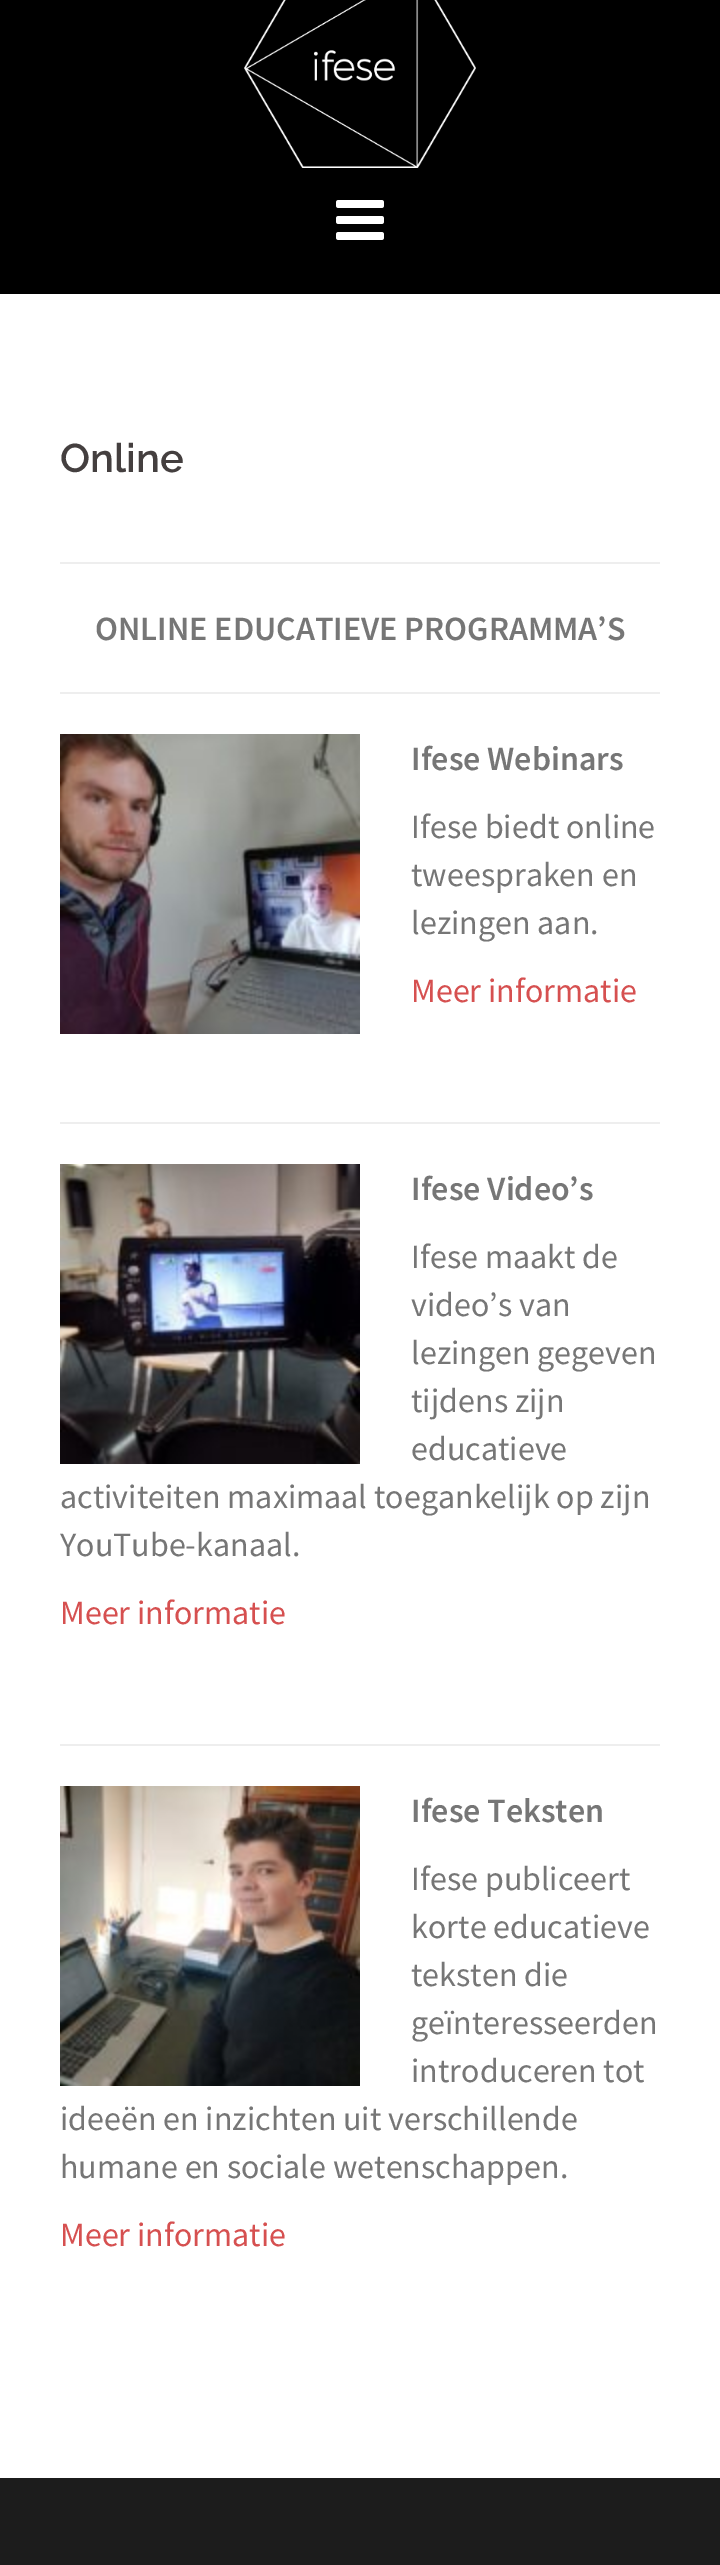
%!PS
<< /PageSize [720 2565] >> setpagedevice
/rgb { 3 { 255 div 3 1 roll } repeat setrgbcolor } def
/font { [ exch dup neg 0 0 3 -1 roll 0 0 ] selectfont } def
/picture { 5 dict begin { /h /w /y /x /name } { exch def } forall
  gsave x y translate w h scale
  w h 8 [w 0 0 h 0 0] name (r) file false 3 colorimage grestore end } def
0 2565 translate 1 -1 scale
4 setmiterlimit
255 255 255 rgb
0 0 720 2565 rectfill
0 0 0 rgb
0 0 720 294 rectfill
(img/1.rgb) 244 0 232 168 picture
(img/2.rgb) 336 200 48 40 picture
238 238 238 rgb
60 562 600 2 rectfill
60 692 600 2 rectfill
(img/3.rgb) 60 734 300 300 picture
60 1122 600 2 rectfill
(img/4.rgb) 60 1164 300 300 picture
60 1744 600 2 rectfill
(img/5.rgb) 60 1786 300 300 picture
28 28 28 rgb
0 2478 720 87 rectfill
/Raleway-SemiBold 40 font
68 63 63 rgb
60 472 moveto (Online) show
/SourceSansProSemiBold-SemiBold 34 font
118 118 118 rgb
95 640 moveto (ONLINE EDUCATIEVE PROGRAMMA’S) show
411 770 moveto (Ifese Webinars) show
/SourceSansPro-Regular 34 font
[
  [(Ifese biedt online) 411 838]
  [(tweespraken en) 411 886]
  [(lezingen aan.) 411 934]
] { aload pop moveto show } forall
214 80 80 rgb
411 1002 moveto (Meer informatie) show
/SourceSansProSemiBold-SemiBold 34 font
118 118 118 rgb
411 1200 moveto (Ifese Video’s) show
/SourceSansPro-Regular 34 font
[
  [(Ifese maakt de) 411 1268]
  [(video’s van) 411 1316]
  [(lezingen gegeven) 411 1364]
  [(tijdens zijn) 411 1412]
  [(educatieve) 411 1460]
  [(activiteiten maximaal toegankelijk op zijn) 60 1508]
  [(YouTube-kanaal.) 60 1556]
] { aload pop moveto show } forall
214 80 80 rgb
60 1624 moveto (Meer informatie) show
/SourceSansProSemiBold-SemiBold 34 font
118 118 118 rgb
411 1822 moveto (Ifese Teksten) show
/SourceSansPro-Regular 34 font
[
  [(Ifese publiceert) 411 1890]
  [(korte educatieve) 411 1938]
  [(teksten die) 411 1986]
  [(geïnteresseerden) 411 2034]
  [(introduceren tot) 411 2082]
  [(ideeën en inzichten uit verschillende) 60 2130]
  [(humane en sociale wetenschappen.) 60 2178]
] { aload pop moveto show } forall
214 80 80 rgb
60 2246 moveto (Meer informatie) show
showpage
